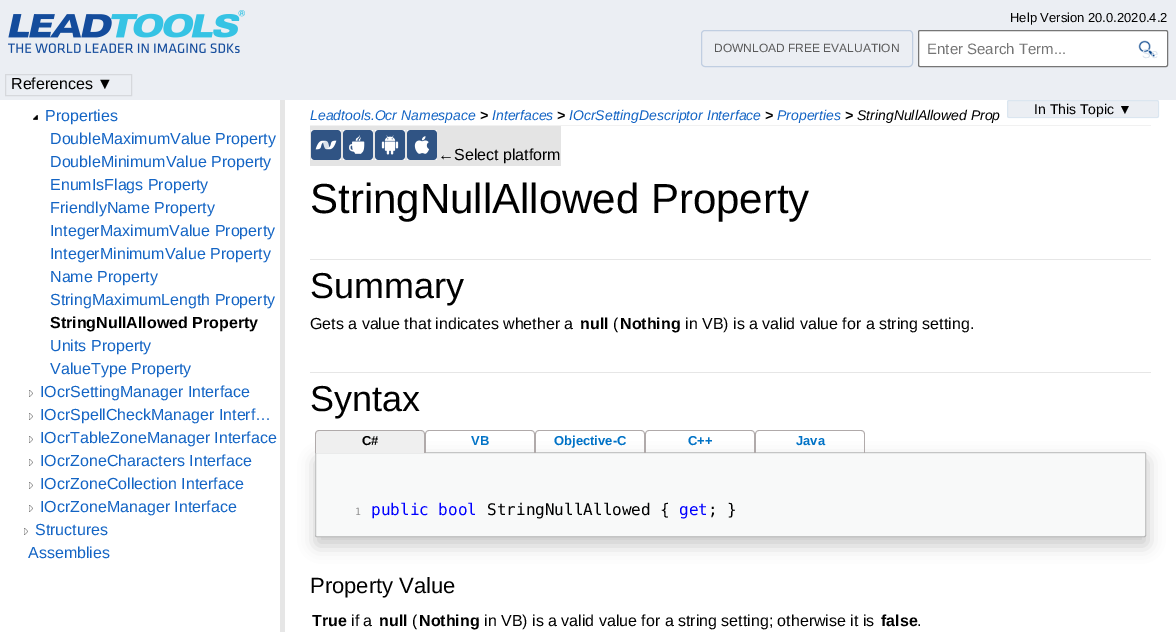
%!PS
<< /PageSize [1176 632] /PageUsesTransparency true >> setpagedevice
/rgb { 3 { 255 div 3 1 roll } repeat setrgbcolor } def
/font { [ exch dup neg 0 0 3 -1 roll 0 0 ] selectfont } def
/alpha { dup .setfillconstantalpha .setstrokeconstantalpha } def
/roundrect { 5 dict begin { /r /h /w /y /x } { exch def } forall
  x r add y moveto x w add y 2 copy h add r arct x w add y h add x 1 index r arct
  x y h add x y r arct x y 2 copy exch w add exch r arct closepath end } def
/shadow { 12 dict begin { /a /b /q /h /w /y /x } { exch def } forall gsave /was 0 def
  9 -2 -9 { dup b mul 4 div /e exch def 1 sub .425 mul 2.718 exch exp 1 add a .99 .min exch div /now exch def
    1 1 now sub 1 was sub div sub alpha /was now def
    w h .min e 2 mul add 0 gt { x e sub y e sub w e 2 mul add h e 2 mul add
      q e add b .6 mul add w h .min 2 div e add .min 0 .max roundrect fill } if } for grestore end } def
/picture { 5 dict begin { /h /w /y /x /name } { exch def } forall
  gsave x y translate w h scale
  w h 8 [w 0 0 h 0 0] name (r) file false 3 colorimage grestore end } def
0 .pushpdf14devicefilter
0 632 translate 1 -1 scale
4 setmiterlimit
255 255 255 rgb
0 0 1176 632 rectfill
235 238 243 rgb
0 0 1176 100 rectfill
(img/1.rgb) 8 10 237 43 picture
192 206 225 rgb
701.5 30.5 211 36 3.5 roundrect stroke
255 255 255 rgb
918.5 30.5 249 36 1.5 roundrect gsave fill grestore
118 118 118 rgb
stroke
(img/2.rgb) 1138 40 17 17 picture
214 216 220 rgb
5.5 74.5 126 21 rectstroke
230 230 230 rgb
280 100 5 532 rectfill
(img/3.rgb) 33 115 5 5 picture
(img/4.rgb) 29 390 4 7 picture
(img/4.rgb) 29 413 4 7 picture
(img/4.rgb) 29 436 4 7 picture
(img/4.rgb) 29 459 4 7 picture
(img/4.rgb) 29 482 4 7 picture
(img/4.rgb) 29 505 4 7 picture
(img/4.rgb) 24 528 4 7 picture
241 241 241 rgb
310 125 841 1 rectfill
235 238 243 rgb
1007 100 152 18 2 roundrect fill
0.1 alpha
76 157 216 rgb
1007.5 100.5 151 17 1.5 roundrect stroke
1 alpha
228 228 228 rgb
310 126 251 40 rectfill
(img/5.rgb) 311 130 30 30 picture
(img/6.rgb) 343 130 30 30 picture
(img/7.rgb) 375 130 30 30 picture
(img/8.rgb) 407 130 30 30 picture
230 230 230 rgb
310 259 841 1 rectfill
310 372 841 1 rectfill
gsave
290 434 moveto 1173 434 lineto 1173 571 lineto 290 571 lineto closepath 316.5 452 moveto 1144.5 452 lineto 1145.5 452 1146 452.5 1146 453.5 curveto 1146 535.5 lineto 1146 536.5 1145.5 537 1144.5 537 curveto 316.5 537 lineto 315.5 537 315 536.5 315 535.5 curveto 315 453.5 lineto 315 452.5 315.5 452 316.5 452 curveto closepath eoclip newpath
0 0 0 rgb
315 459 833 87 2.5 8 0.2 shadow
grestore
0.4 alpha
238 239 240 rgb
315 452 831 85 1.5 roundrect fill
118 118 118 rgb
315.5 452.5 830 84 1 roundrect stroke
1 alpha
239 239 239 rgb
319 431 moveto 421 431 lineto 422.5 431 424 432.5 424 434 curveto 424 453 lineto 316 453 lineto 316 434 lineto 316 432.5 317.5 431 319 431 curveto closepath fill
176 170 170 rgb
319 430 moveto 421 430 lineto 423 430 425 432 425 434 curveto 425 453 lineto 315 453 lineto 315 434 lineto 315 432 317 430 319 430 curveto closepath 319 431 moveto 421 431 lineto 423 431 424 432 424 434 curveto 424 453 lineto 316 453 lineto 316 434 lineto 316 432 317 431 319 431 curveto closepath eofill
429 430 moveto 531 430 lineto 533 430 535 432 535 434 curveto 535 453 lineto 425 453 lineto 425 434 lineto 425 432 427 430 429 430 curveto closepath 429 431 moveto 531 431 lineto 533 431 534 432 534 434 curveto 534 453 lineto 426 453 lineto 426 434 lineto 426 432 427 431 429 431 curveto closepath eofill
539 430 moveto 641 430 lineto 643 430 645 432 645 434 curveto 645 453 lineto 535 453 lineto 535 434 lineto 535 432 537 430 539 430 curveto closepath 539 431 moveto 641 431 lineto 643 431 644 432 644 434 curveto 644 453 lineto 536 453 lineto 536 434 lineto 536 432 537 431 539 431 curveto closepath eofill
649 430 moveto 751 430 lineto 753 430 755 432 755 434 curveto 755 453 lineto 645 453 lineto 645 434 lineto 645 432 647 430 649 430 curveto closepath 649 431 moveto 751 431 lineto 753 431 754 432 754 434 curveto 754 453 lineto 646 453 lineto 646 434 lineto 646 432 647 431 649 431 curveto closepath eofill
759 430 moveto 861 430 lineto 863 430 865 432 865 434 curveto 865 453 lineto 755 453 lineto 755 434 lineto 755 432 757 430 759 430 curveto closepath 759 431 moveto 861 431 lineto 863 431 864 432 864 434 curveto 864 453 lineto 756 453 lineto 756 434 lineto 756 432 757 431 759 431 curveto closepath eofill
/LiberationSans-Regular 13 font
0 0 0 rgb
1010 22 moveto (Help Version 20.0.2020.4.2) show
/LiberationSans-Regular 12 font
88 88 88 rgb
714 52 moveto (DOWNLOAD FREE EVALUATION) show
/LiberationSans-Regular 15 font
117 117 117 rgb
927 54 moveto (Enter Search Term...) show
/LiberationSans-Regular 13 font
217 226 237 rgb
1142 58 moveto (Se) show
/LiberationSans-Regular 16 font
0 0 0 rgb
11 89 moveto (References ▼) show
19 100 196 rgb
[
  [(Properties) 45 121]
  [(DoubleMaximumValue Property) 50 144]
  [(DoubleMinimumValue Property) 50 167]
  [(EnumIsFlags Property) 50 190]
  [(FriendlyName Property) 50 213]
  [(IntegerMaximumValue Property) 50 236]
  [(IntegerMinimumValue Property) 50 259]
  [(Name Property) 50 282]
  [(StringMaximumLength Property) 50 305]
] { aload pop moveto show } forall
/LiberationSans-Bold 16 font
0 0 0 rgb
50 328 moveto (StringNullAllowed Property) show
/LiberationSans-Regular 16 font
19 100 196 rgb
[
  [(Units Property) 50 351]
  [(ValueType Property) 50 374]
  [(IOcrSettingManager Interface) 40 397]
  [(IOcrSpellCheckManager Interf…) 40 420]
  [(IOcrTableZoneManager Interface) 40 443]
  [(IOcrZoneCharacters Interface) 40 466]
  [(IOcrZoneCollection Interface) 40 489]
  [(IOcrZoneManager Interface) 40 512]
  [(Structures) 35 535]
  [(Assemblies) 28 558]
] { aload pop moveto show } forall
/LiberationSans-Italic 14 font
310 120 moveto (Leadtools.Ocr Namespace) show
/LiberationSans-BoldItalic 14 font
0 0 0 rgb
480 120 moveto (>) show
/LiberationSans-Italic 14 font
19 100 196 rgb
492 120 moveto (Interfaces) show
/LiberationSans-BoldItalic 14 font
0 0 0 rgb
557 120 moveto (>) show
/LiberationSans-Italic 14 font
19 100 196 rgb
569 120 moveto (IOcrSettingDescriptor Interface) show
/LiberationSans-BoldItalic 14 font
0 0 0 rgb
765 120 moveto (>) show
/LiberationSans-Italic 14 font
19 100 196 rgb
777 120 moveto (Properties) show
/LiberationSans-BoldItalic 14 font
0 0 0 rgb
845 120 moveto (>) show
/LiberationSans-Italic 14 font
857 120 moveto (StringNullAllowed Prop) show
/LiberationSans-Regular 14 font
1034 114 moveto (In This Topic ▼) show
/LiberationSans-Regular 16 font
438 160 moveto (←Select platform) show
/LiberationSans-Regular 42 font
310 213 moveto (StringNullAllowed Property) show
/LiberationSans-Regular 36 font
310 298 moveto (Summary) show
/LiberationSans-Regular 16 font
310 329 moveto (Gets a value that indicates whether a) show
/LiberationSans-Bold 16 font
580 329 moveto (null) show
/LiberationSans-Regular 16 font
613 329 moveto (\() show
/LiberationSans-Bold 16 font
620 329 moveto (Nothing) show
/LiberationSans-Regular 16 font
685 329 moveto (in VB\) is a valid value for a string setting.) show
/LiberationSans-Regular 36 font
310 411 moveto (Syntax) show
/LiberationSans-Bold 13 font
362 445 moveto (C#) show
0 114 198 rgb
[
  [(VB) 471 445]
  [(Objective-C) 554 445]
  [(C++) 688 445]
  [(Java) 796 445]
] { aload pop moveto show } forall
/DejaVuSansMono-Regular 10 font
144 144 144 rgb
355 515 moveto (1) show
/DejaVuSansMono-Regular 16 font
0 0 255 rgb
371 515 moveto (public bool) show
0 0 0 rgb
487 515 moveto (StringNullAllowed {) show
0 0 255 rgb
679 515 moveto (get) show
0 0 0 rgb
708 515 moveto (; }) show
/LiberationSans-Regular 22 font
310 593 moveto (Property Value) show
/LiberationSans-Bold 16 font
312 626 moveto (True) show
/LiberationSans-Regular 16 font
351 626 moveto (if a) show
/LiberationSans-Bold 16 font
379 626 moveto (null) show
/LiberationSans-Regular 16 font
412 626 moveto (\() show
/LiberationSans-Bold 16 font
419 626 moveto (Nothing) show
/LiberationSans-Regular 16 font
484 626 moveto (in VB\) is a valid value for a string setting; otherwise it is) show
/LiberationSans-Bold 16 font
881 626 moveto (false) show
/LiberationSans-Regular 16 font
917 626 moveto (.) show
.poppdf14devicefilter showpage
